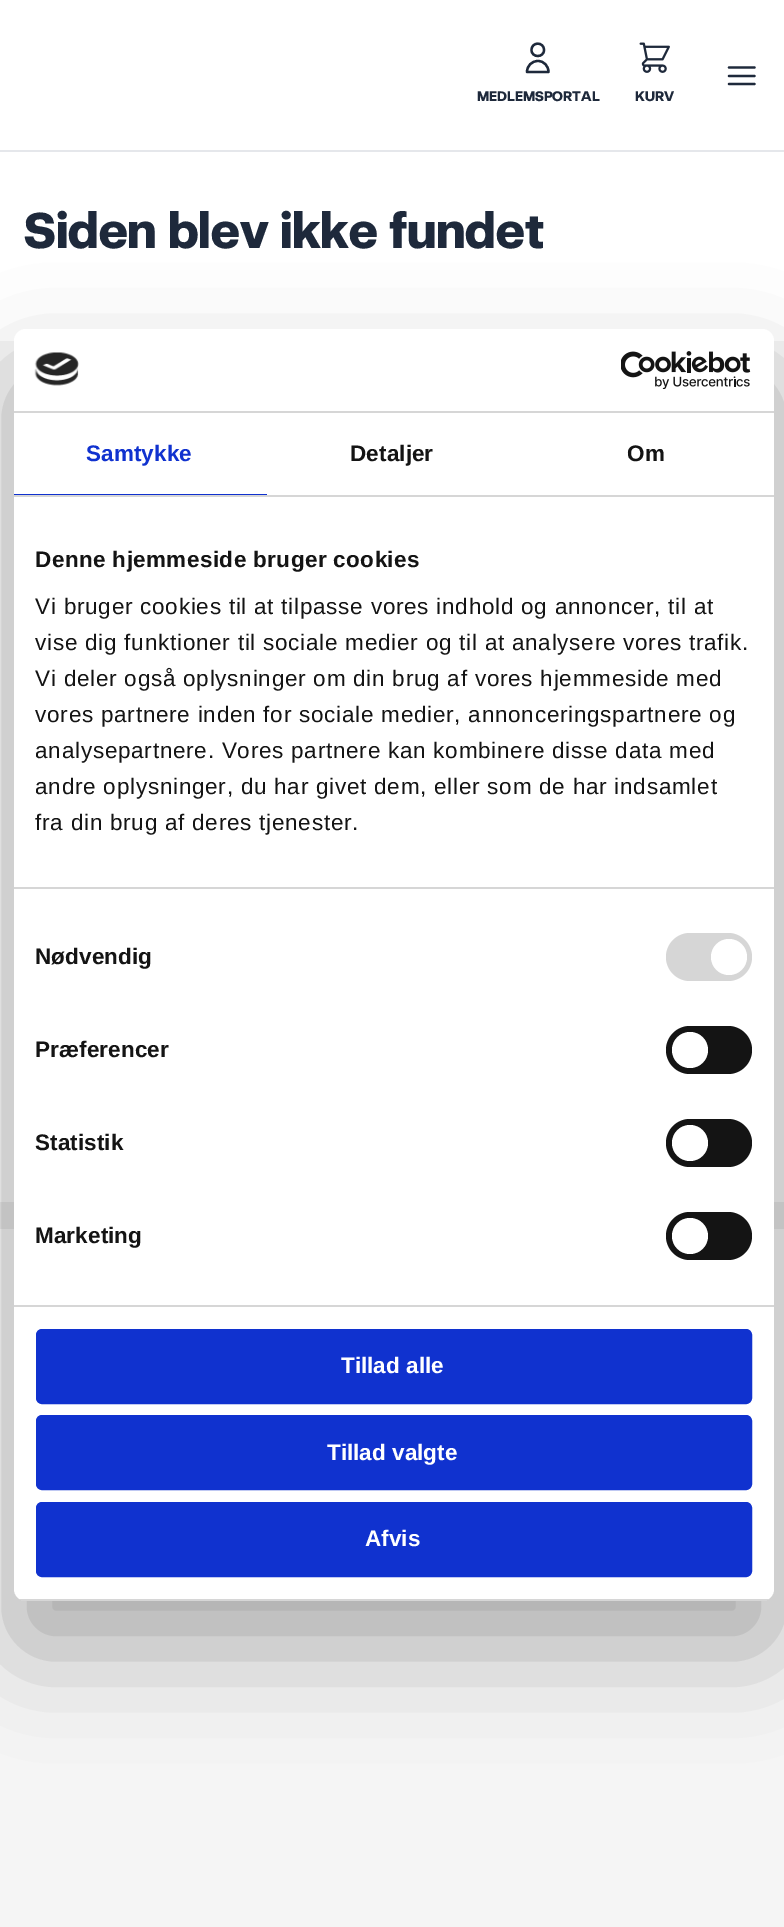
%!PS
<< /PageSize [784 1927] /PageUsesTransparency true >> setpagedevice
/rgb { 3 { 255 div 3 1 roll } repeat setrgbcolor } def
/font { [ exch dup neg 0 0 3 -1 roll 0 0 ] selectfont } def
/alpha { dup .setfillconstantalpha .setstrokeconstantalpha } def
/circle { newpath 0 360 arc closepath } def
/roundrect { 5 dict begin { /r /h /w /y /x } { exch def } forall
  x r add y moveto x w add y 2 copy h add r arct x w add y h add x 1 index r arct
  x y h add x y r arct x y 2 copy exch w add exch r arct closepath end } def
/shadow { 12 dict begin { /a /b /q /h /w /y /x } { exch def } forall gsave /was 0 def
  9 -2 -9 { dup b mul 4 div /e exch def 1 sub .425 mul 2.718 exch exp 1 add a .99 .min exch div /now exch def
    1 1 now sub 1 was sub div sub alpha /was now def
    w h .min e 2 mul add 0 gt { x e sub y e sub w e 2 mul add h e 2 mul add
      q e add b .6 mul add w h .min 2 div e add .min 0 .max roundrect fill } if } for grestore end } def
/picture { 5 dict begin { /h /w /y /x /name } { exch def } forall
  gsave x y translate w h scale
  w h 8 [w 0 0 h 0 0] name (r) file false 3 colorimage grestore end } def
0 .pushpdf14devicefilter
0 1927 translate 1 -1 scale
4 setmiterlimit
245 245 245 rgb
0 0 784 1927 rectfill
255 255 255 rgb
0 0 784 150 rectfill
229 231 235 rgb
0 150 784 2 rectfill
30 41 59 rgb
2.3 setlinewidth
1 setlinecap
1 setlinejoin
729 67.5 moveto 754.5 67.5 lineto 729 76 moveto 754.5 76 lineto 729 84 moveto 754.5 84 lineto stroke
544 50 moveto 544 58 531.5 58 531.5 50 curveto 531.5 41.5 544 41.5 544 50 curveto closepath 538 61 moveto 531.5 61 527 66 527 72 curveto 548.5 72 lineto 548.5 66 544 61 538 61 curveto closepath stroke
(img/1.rgb) 639 42 31 31 picture
255 255 255 rgb
0 152 784 189 rectfill
229 229 229 rgb
0 1202 784 27 rectfill
0 0 0 rgb
14 377 760 1272 12 51 0.3 shadow
255 255 255 rgb
14 329 760 1272 12 roundrect fill
214 214 214 rgb
14 411 760 2 rectfill
(img/2.rgb) 34 352 45 34 picture
(img/3.rgb) 621 351 130 38 picture
[
  [14 495 760 2 214 214 214]
  [14 494 253 1 16 50 207]
  [14 887 760 2 214 214 214]
  [14 1305 760 2 214 214 214]
] { aload pop rgb rectfill } forall
666 933 86 48 24 roundrect fill
255 255 255 rgb
729 957 18 circle fill
20 20 20 rgb
666 1026 86 48 24 roundrect fill
255 255 255 rgb
690 1050 18 circle fill
20 20 20 rgb
666 1119 86 48 24 roundrect fill
255 255 255 rgb
690 1143 18 circle fill
20 20 20 rgb
666 1212 86 48 24 roundrect fill
255 255 255 rgb
690 1236 18 circle fill
gsave
14 329 760 1272 12 roundrect clip newpath
214 214 214 rgb
14 1599 760 2 rectfill
grestore
16 50 207 rgb
37.5 1330.5 713 72 4.5 roundrect gsave fill grestore
3 setlinewidth
0 setlinecap
0 setlinejoin
stroke
37.5 1416.5 713 72 4.5 roundrect gsave fill grestore
stroke
37.5 1503.5 713 72 4.5 roundrect gsave fill grestore
stroke
/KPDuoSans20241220-Bold 13.25 font
30 41 59 rgb
477 101 moveto (MEDLEMSPORTAL) show
635 101 moveto (KURV) show
/KPDuoSans20241220-Bold 48 font
24 248 moveto (Siden blev ikke fundet) show
/LiberationSans-Bold 22.5 font
16 50 207 rgb
86 461 moveto 0.1 0 (Samtykke) ashow
20 20 20 rgb
350 461 moveto 0.1 0 (Detaljer) ashow
627 461 moveto 0.1 0 (Om) ashow
35 567 moveto 0.4 0 (Denne hjemmeside bruger cookies) ashow
/LiberationSans-Regular 22.5 font
35 614 moveto 0.75 0 (Vi bruger cookies til at tilpasse vores indhold og annoncer, til at) ashow
35 650 moveto 0.75 0 (vise dig funktioner til sociale medier og til at analysere vores trafik.) ashow
35 686 moveto 0.75 0 (Vi deler også oplysninger om din brug af vores hjemmeside med) ashow
35 722 moveto 0.75 0 (vores partnere inden for sociale medier, annonceringspartnere og) ashow
35 758 moveto 0.75 0 (analysepartnere. Vores partnere kan kombinere disse data med) ashow
35 794 moveto 0.75 0 (andre oplysninger, du har givet dem, eller som de har indsamlet) ashow
35 830 moveto 0.75 0 (fra din brug af deres tjenester.) ashow
/LiberationSans-Bold 22.5 font
35 964 moveto 0.1 0 (Nødvendig) ashow
35 1057 moveto 0.1 0 (Præferencer) ashow
35 1150 moveto 0.1 0 (Statistik) ashow
35 1243 moveto 0.1 0 (Marketing) ashow
255 255 255 rgb
[
  [(Tillad alle) 341 1373]
  [(Tillad valgte) 327 1460]
  [(Afvis) 365 1546]
] { aload pop moveto show } forall
.poppdf14devicefilter showpage
